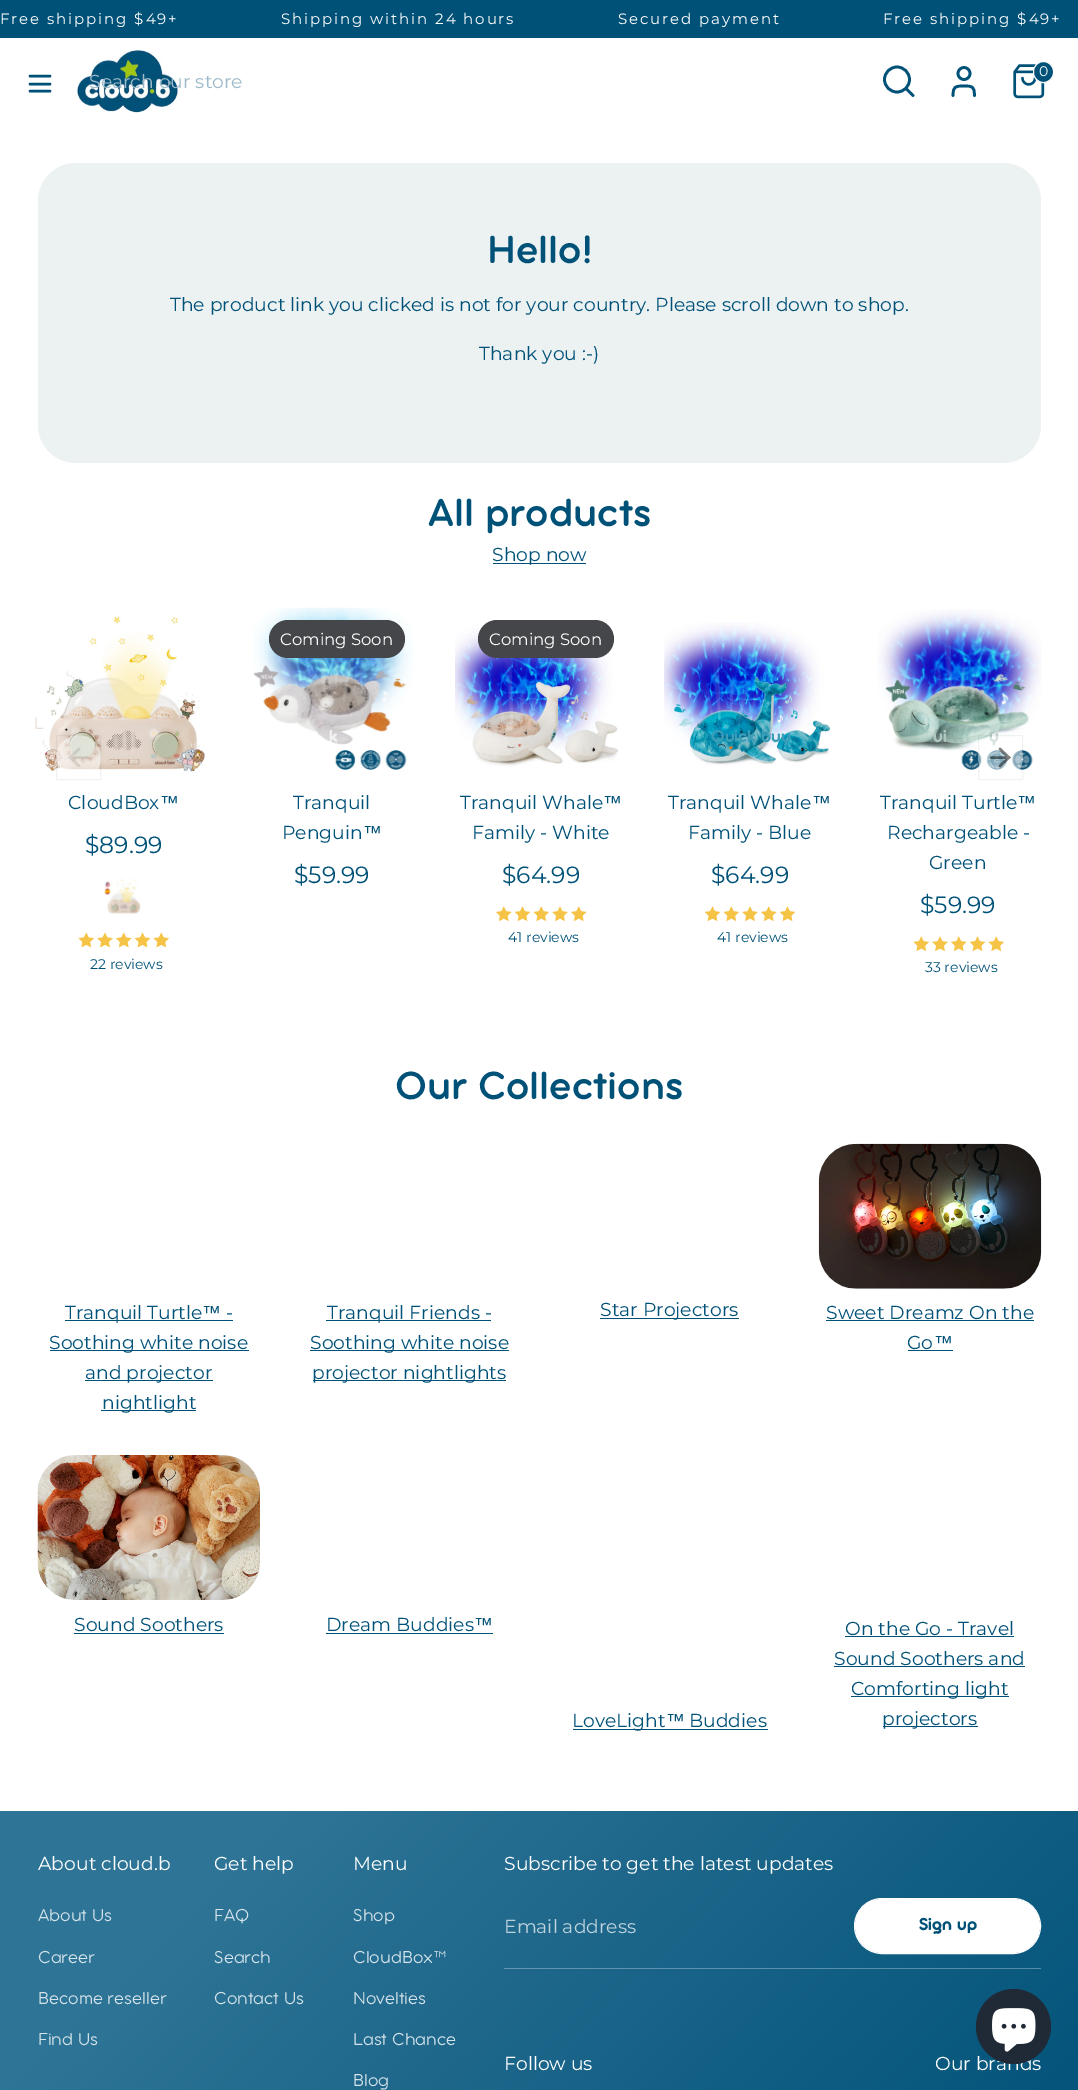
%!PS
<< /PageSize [1078 2090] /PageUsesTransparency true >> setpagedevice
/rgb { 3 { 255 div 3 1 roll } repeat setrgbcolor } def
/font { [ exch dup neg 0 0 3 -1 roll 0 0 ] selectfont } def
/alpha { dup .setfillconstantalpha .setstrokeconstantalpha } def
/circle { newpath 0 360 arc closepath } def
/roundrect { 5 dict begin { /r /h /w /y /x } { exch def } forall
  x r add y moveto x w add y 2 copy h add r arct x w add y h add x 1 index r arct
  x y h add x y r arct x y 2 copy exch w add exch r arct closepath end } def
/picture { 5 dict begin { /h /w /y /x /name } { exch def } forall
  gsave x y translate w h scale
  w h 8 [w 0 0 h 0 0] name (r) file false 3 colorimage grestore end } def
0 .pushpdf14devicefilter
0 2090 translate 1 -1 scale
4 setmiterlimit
255 255 255 rgb
0 0 1078 2090 rectfill
0 81 120 rgb
0 0 1078 38 rectfill
(img/1.rgb) 77 50 101 63 picture
2.5 setlinewidth
1 setlinecap
1 setlinejoin
30 84 moveto 50 84 lineto 30 76 moveto 50 76 lineto 30 91 moveto 50 91 lineto stroke
2.7 setlinewidth
0 setlinecap
0 setlinejoin
897 79.5 12.5 circle stroke
1 setlinecap
1 setlinejoin
913 95.5 moveto 906 88.5 lineto stroke
974.5 95.5 moveto 974.5 86 972 86 964 86 curveto 955.5 86 953 86 953 95.5 curveto stroke
0 setlinecap
0 setlinejoin
964 73.5 6 circle stroke
(img/2.rgb) 1013 64 32 35 picture
1033.5 61.5 20 21 10 roundrect gsave fill grestore
255 255 255 rgb
1 setlinewidth
stroke
236 241 242 rgb
38 163 1003 300 38 roundrect fill
0 81 120 rgb
493 563 93 1 rectfill
(img/3.rgb) 41 616 164 156 picture
(img/4.rgb) 104 878 37 36 picture
(img/5.rgb) 78 932 16 16 picture
(img/6.rgb) 97 933 16 15 picture
(img/7.rgb) 116 932 16 16 picture
(img/8.rgb) 135 932 15 15 picture
(img/5.rgb) 153 932 16 16 picture
(img/9.rgb) 78 932 16 16 picture
(img/10.rgb) 97 932 16 16 picture
(img/11.rgb) 116 932 16 16 picture
(img/12.rgb) 134 932 17 16 picture
(img/9.rgb) 153 932 16 16 picture
(img/13.rgb) 253 607 161 163 picture
68 70 73 rgb
269 620 136 38 19 roundrect fill
(img/14.rgb) 455 622 163 145 picture
478 620 136 38 19 roundrect fill
(img/15.rgb) 496 906 16 15 picture
(img/16.rgb) 515 906 15 15 picture
(img/17.rgb) 533 906 16 15 picture
(img/18.rgb) 552 906 16 15 picture
(img/15.rgb) 571 906 16 15 picture
(img/19.rgb) 496 906 16 16 picture
(img/20.rgb) 514 906 17 16 picture
(img/21.rgb) 533 906 16 16 picture
(img/22.rgb) 552 906 16 16 picture
(img/19.rgb) 571 906 16 16 picture
(img/23.rgb) 664 622 167 143 picture
(img/16.rgb) 705 906 15 15 picture
(img/20.rgb) 704 906 17 16 picture
(img/17.rgb) 723 906 16 15 picture
(img/21.rgb) 723 906 16 16 picture
(img/18.rgb) 742 906 16 15 picture
(img/22.rgb) 742 906 16 16 picture
(img/15.rgb) 761 906 16 15 picture
(img/19.rgb) 761 906 16 16 picture
(img/16.rgb) 780 906 15 15 picture
(img/20.rgb) 779 906 17 16 picture
(img/24.rgb) 877 609 165 161 picture
(img/17.rgb) 913 936 16 15 picture
(img/18.rgb) 932 936 16 15 picture
(img/15.rgb) 951 936 16 15 picture
(img/16.rgb) 970 936 15 15 picture
(img/17.rgb) 988 936 16 15 picture
(img/21.rgb) 913 936 16 16 picture
(img/22.rgb) 932 936 16 16 picture
(img/19.rgb) 951 936 16 16 picture
(img/20.rgb) 969 936 17 16 picture
(img/21.rgb) 988 936 16 16 picture
0.5 alpha
255 255 255 rgb
78.5 757.5 22.5 circle fill
0.05 alpha
0 0 0 rgb
56.5 735.5 44 44 rectstroke
0.1 alpha
2.5 setlinewidth
1 setlinecap
87.5 757.5 moveto 70 757.5 lineto 79 766 moveto 70 757.5 lineto 79 749 lineto stroke
1 alpha
[
  [65 1320 168 1 0 81 120]
  [50 1350 199 1 0 81 120]
  [85 1380 128 1 0 81 120]
  [101 1410 95 1 0 81 120]
  [326 1320 165 1 0 81 120]
  [310 1350 199 1 0 81 120]
  [313 1380 193 1 0 81 120]
  [600 1318 139 1 0 81 120]
] { aload pop rgb rectfill } forall
(img/25.rgb) 818 1143 224 146 picture
826 1320 208 1 rectfill
908 1350 45 1 rectfill
(img/26.rgb) 37 1455 223 145 picture
[
  [74 1633 150 1 0 81 120]
  [326 1633 167 1 0 81 120]
  [573 1729 195 1 0 81 120]
  [845 1636 169 1 0 81 120]
  [834 1666 191 1 0 81 120]
  [851 1696 158 1 0 81 120]
  [883 1726 95 1 0 81 120]
] { aload pop rgb rectfill } forall
gsave 0 1811 moveto 1078 1811 lineto 1078 2090 lineto 0 2090 lineto closepath clip newpath
<< /ShadingType 2 /ColorSpace /DeviceRGB /Coords [952 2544 127 1689] /Extend [true true] /Function << /FunctionType 3 /Domain [0 1] /Functions [<< /FunctionType 2 /Domain [0 1] /C0 [0 0.318 0.471] /C1 [0 0.318 0.471] /N 1 >> << /FunctionType 2 /Domain [0 1] /C0 [0 0.318 0.471] /C1 [0.18 0.455 0.588] /N 1 >> << /FunctionType 2 /Domain [0 1] /C0 [0.18 0.455 0.588] /C1 [0.18 0.455 0.588] /N 1 >>] /Bounds [0.14 0.83] /Encode [0 1 0 1 0 1] >> >> shfill grestore
gsave 504 1968 moveto 1041 1968 lineto 1041 1969 lineto 504 1969 lineto closepath clip newpath
<< /ShadingType 2 /ColorSpace /DeviceRGB /Coords [952 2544 127 1689] /Extend [true true] /Function << /FunctionType 3 /Domain [0 1] /Functions [<< /FunctionType 2 /Domain [0 1] /C0 [0.302 0.522 0.631] /C1 [0.302 0.522 0.631] /N 1 >> << /FunctionType 2 /Domain [0 1] /C0 [0.302 0.522 0.631] /C1 [0.427 0.62 0.714] /N 1 >> << /FunctionType 2 /Domain [0 1] /C0 [0.427 0.62 0.714] /C1 [0.427 0.62 0.714] /N 1 >>] /Bounds [0.14 0.83] /Encode [0 1 0 1 0 1] >> >> shfill grestore
255 255 255 rgb
1 setlinewidth
0 setlinecap
854.5 1898.5 186 55 27.5 roundrect stroke
855 1899 185 54 27 roundrect fill
/Montserrat-Regular 15 font
0 24 moveto 1.9 0 (Free shipping $49+) ashow
281 24 moveto 1.9 0 (Shipping within 24 hours) ashow
618 24 moveto 1.9 0 (Secured payment) ashow
883 24 moveto 1.9 0 (Free shipping $49+) ashow
/Montserrat-Regular 14 font
1039 76 moveto (0) show
/Montserrat-Regular 18.75 font
156 186 201 rgb
89 88 moveto (Search our store) show
/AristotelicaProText-Light 18.75 font
234 223 214 rgb
34 729 moveto (L) show
/AristotelicaProText-Medium 42.5 font
0 81 120 rgb
487 263 moveto (Hello!) show
/Montserrat-Regular 18.75 font
170 311 moveto (The product link you clicked is not for your country. Please scroll down to shop.) show
479 360 moveto (Thank you :-\)) show
/AristotelicaProText-Medium 42.5 font
428 526 moveto (All products) show
/Montserrat-Regular 18.75 font
492 561 moveto (Shop now) show
68 809 moveto (CloudBox) show
/LiberationSans-Regular 18.75 font
160 809 moveto (™) show
/Montserrat-Regular 23.5 font
85 853 moveto ($89.99) show
/Montserrat-Regular 14 font
90 969 moveto (22 reviews) show
/Montserrat-Regular 16.5 font
255 255 255 rgb
280 645 moveto (Coming Soon) show
/Montserrat-Regular 23.5 font
0 81 120 rgb
294 883 moveto ($59.99) show
/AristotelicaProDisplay-Bold 18.75 font
243 242 243 rgb
329 742 moveto (k) show
/Montserrat-Regular 18.75 font
0 81 120 rgb
293 809 moveto (Tranquil) show
282 839 moveto (Penguin) show
/LiberationSans-Regular 18.75 font
363 839 moveto (™) show
/Montserrat-Regular 16.5 font
255 255 255 rgb
489 645 moveto (Coming Soon) show
/Montserrat-Regular 23.5 font
0 81 120 rgb
502 883 moveto ($64.99) show
/Montserrat-Regular 18.75 font
460 809 moveto (Tranquil Whale) show
/LiberationSans-Regular 18.75 font
603 809 moveto (™) show
/Montserrat-Regular 18.75 font
472 839 moveto (Family - White) show
/Montserrat-Regular 14 font
508 942 moveto (41 reviews) show
/AristotelicaProDisplay-Bold 18.75 font
59 158 185 rgb
711 742 moveto (Quick buy) show
/Montserrat-Regular 18.75 font
0 81 120 rgb
668 809 moveto (Tranquil Whale) show
/LiberationSans-Regular 18.75 font
812 809 moveto (™) show
/Montserrat-Regular 18.75 font
688 839 moveto (Family - Blue) show
/Montserrat-Regular 23.5 font
711 883 moveto ($64.99) show
/Montserrat-Regular 14 font
717 942 moveto (41 reviews) show
/AristotelicaProDisplay-Bold 18.75 font
175 197 191 rgb
933 742 moveto (ui) show
989 742 moveto (y) show
/Montserrat-Regular 18.75 font
0 81 120 rgb
880 809 moveto (Tranquil Turtle) show
/LiberationSans-Regular 18.75 font
1017 809 moveto (™) show
/Montserrat-Regular 18.75 font
887 839 moveto (Rechargeable -) show
929 869 moveto (Green) show
/Montserrat-Regular 23.5 font
920 913 moveto ($59.99) show
/Montserrat-Regular 14 font
925 972 moveto (33 reviews) show
0.5 alpha
255 255 255 rgb
1000.5 757.5 22.5 circle fill
0.05 alpha
0 0 0 rgb
978.5 735.5 44 44 rectstroke
0.5 alpha
2.5 setlinewidth
1 setlinecap
991 757.5 moveto 1009 757.5 lineto 1000 749 moveto 1009 757.5 lineto 1000 766 lineto stroke
/AristotelicaProText-Medium 42.5 font
1 alpha
0 81 120 rgb
395 1099 moveto (Our Collections) show
/Montserrat-Regular 18.75 font
65 1319 moveto (Tranquil Turtle) show
/LiberationSans-Regular 18.75 font
202 1319 moveto (™) show
/Montserrat-Regular 18.75 font
[
  [(-) 226 1319]
  [(Soothing white noise) 49 1349]
  [(and projector) 85 1379]
  [(nightlight) 102 1409]
  [(Tranquil Friends -) 327 1319]
  [(Soothing white noise) 310 1349]
  [(projector nightlights) 312 1379]
  [(Star Projectors) 600 1316]
  [(Sweet Dreamz On the) 826 1319]
  [(Go) 907 1349]
] { aload pop moveto show } forall
/LiberationSans-Regular 18.75 font
934 1349 moveto (™) show
/Montserrat-Regular 18.75 font
74 1631 moveto (Sound Soothers) show
326 1631 moveto (Dream Buddies) show
/LiberationSans-Regular 18.75 font
474 1631 moveto (™) show
/Montserrat-Regular 18.75 font
572 1727 moveto (LoveLight) show
/LiberationSans-Regular 18.75 font
666 1727 moveto (™) show
/Montserrat-Regular 18.75 font
[
  [(Buddies) 689 1727]
  [(On the Go - Travel) 845 1635]
  [(Sound Soothers and) 834 1665]
  [(Comforting light) 851 1695]
  [(projectors) 882 1725]
] { aload pop moveto show } forall
255 255 255 rgb
38 1870 moveto (About cloud.b) show
/AristotelicaProText-Light 18.75 font
213 227 234 rgb
[
  [(About Us) 38 1921]
  [(Career) 38 1963]
  [(Become reseller) 38 2004]
  [(Find Us) 38 2045]
] { aload pop moveto show } forall
/Montserrat-Regular 18.75 font
255 255 255 rgb
214 1870 moveto (Get help) show
/AristotelicaProText-Light 18.75 font
213 227 234 rgb
[
  [(FAQ) 214 1921]
  [(Search) 214 1963]
  [(Contact Us) 214 2004]
] { aload pop moveto show } forall
/Montserrat-Regular 18.75 font
255 255 255 rgb
353 1870 moveto (Menu) show
/AristotelicaProText-Light 18.75 font
213 227 234 rgb
[
  [(Shop) 353 1921]
  [(CloudBox™) 353 1963]
  [(Novelties) 353 2004]
  [(Last Chance) 353 2045]
  [(Blog) 353 2086]
] { aload pop moveto show } forall
/Montserrat-Regular 18.75 font
255 255 255 rgb
504 1870 moveto (Subscribe to get the latest updates) show
188 210 220 rgb
504 1933 moveto (Email address) show
/AristotelicaProDisplay-Bold 18.75 font
0 81 120 rgb
919 1930 moveto (Sign up) show
/Montserrat-Regular 18.75 font
255 255 255 rgb
504 2070 moveto (Follow us) show
935 2070 moveto (Our brands) show
32 42 54 rgb
1013.5 2026.5 37.5 circle fill
(img/27.rgb) 992 2008 44 44 picture
.poppdf14devicefilter showpage
